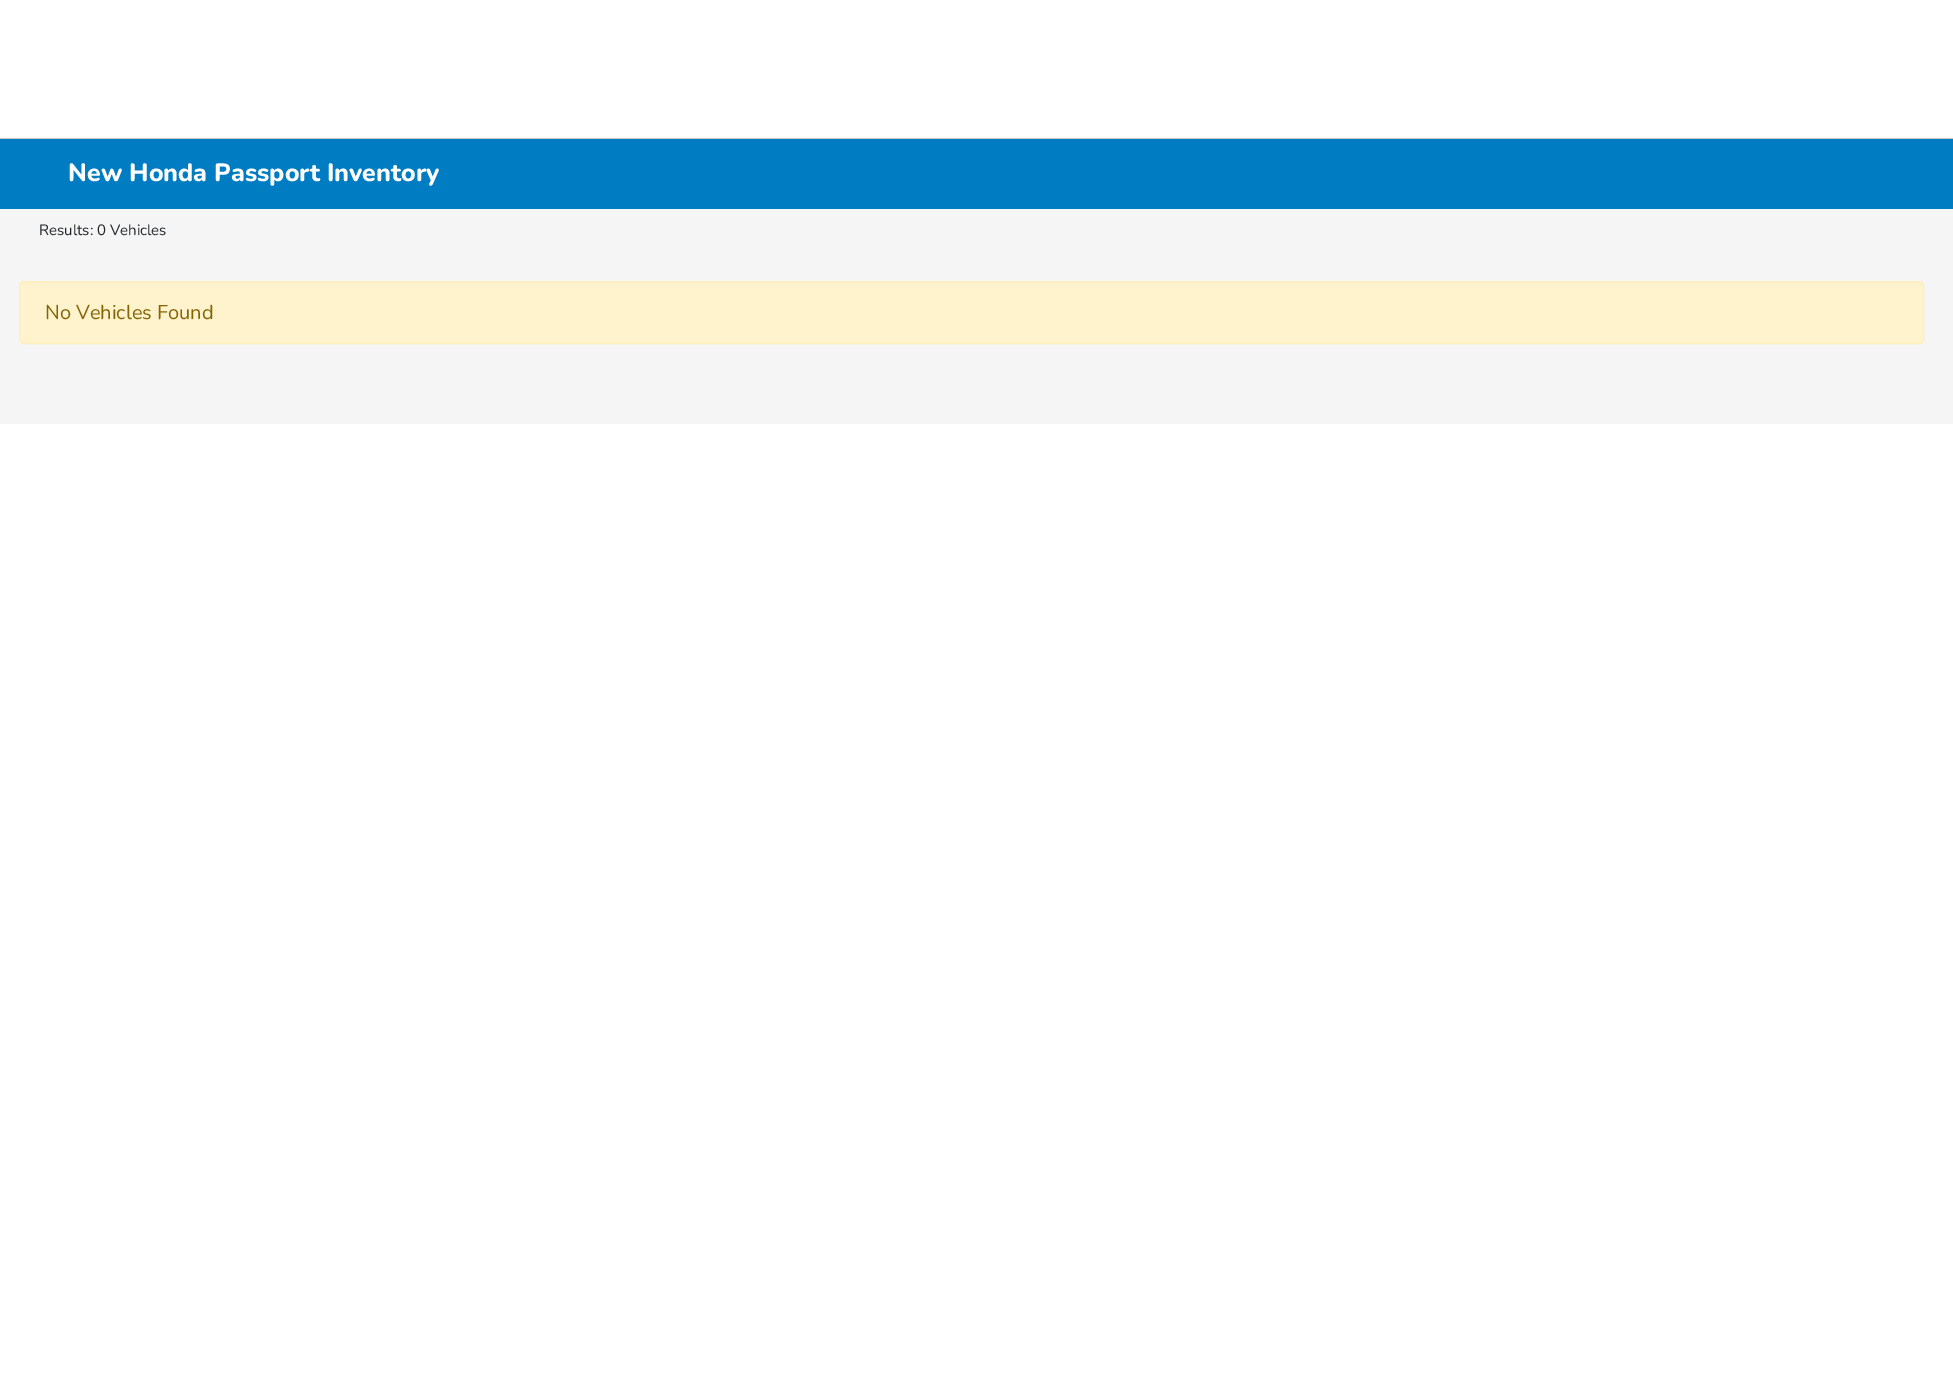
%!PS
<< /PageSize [1953 1388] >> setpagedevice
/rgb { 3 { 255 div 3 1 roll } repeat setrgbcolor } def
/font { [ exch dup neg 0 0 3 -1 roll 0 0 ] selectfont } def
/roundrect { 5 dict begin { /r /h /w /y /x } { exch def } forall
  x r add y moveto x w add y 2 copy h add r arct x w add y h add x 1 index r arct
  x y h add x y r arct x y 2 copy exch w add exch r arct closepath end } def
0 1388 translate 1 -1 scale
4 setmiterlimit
255 255 255 rgb
0 0 1953 1388 rectfill
[
  [0 209 1953 215 245 245 245]
  [0 139 1953 70 0 124 195]
  [0 138 1953 1 198 198 198]
] { aload pop rgb rectfill } forall
255 243 205 rgb
19.5 281.5 1904 62 4.5 roundrect gsave fill grestore
255 238 186 rgb
stroke
/Nunito-ExtraBold 25 font
255 255 255 rgb
68 181 moveto (New Honda Passport Inventory) show
/Nunito-Regular 15 font
33 37 41 rgb
39 235 moveto (Results: 0 Vehicles) show
/Nunito-Regular 20 font
133 100 4 rgb
45 319 moveto (No Vehicles Found) show
showpage
